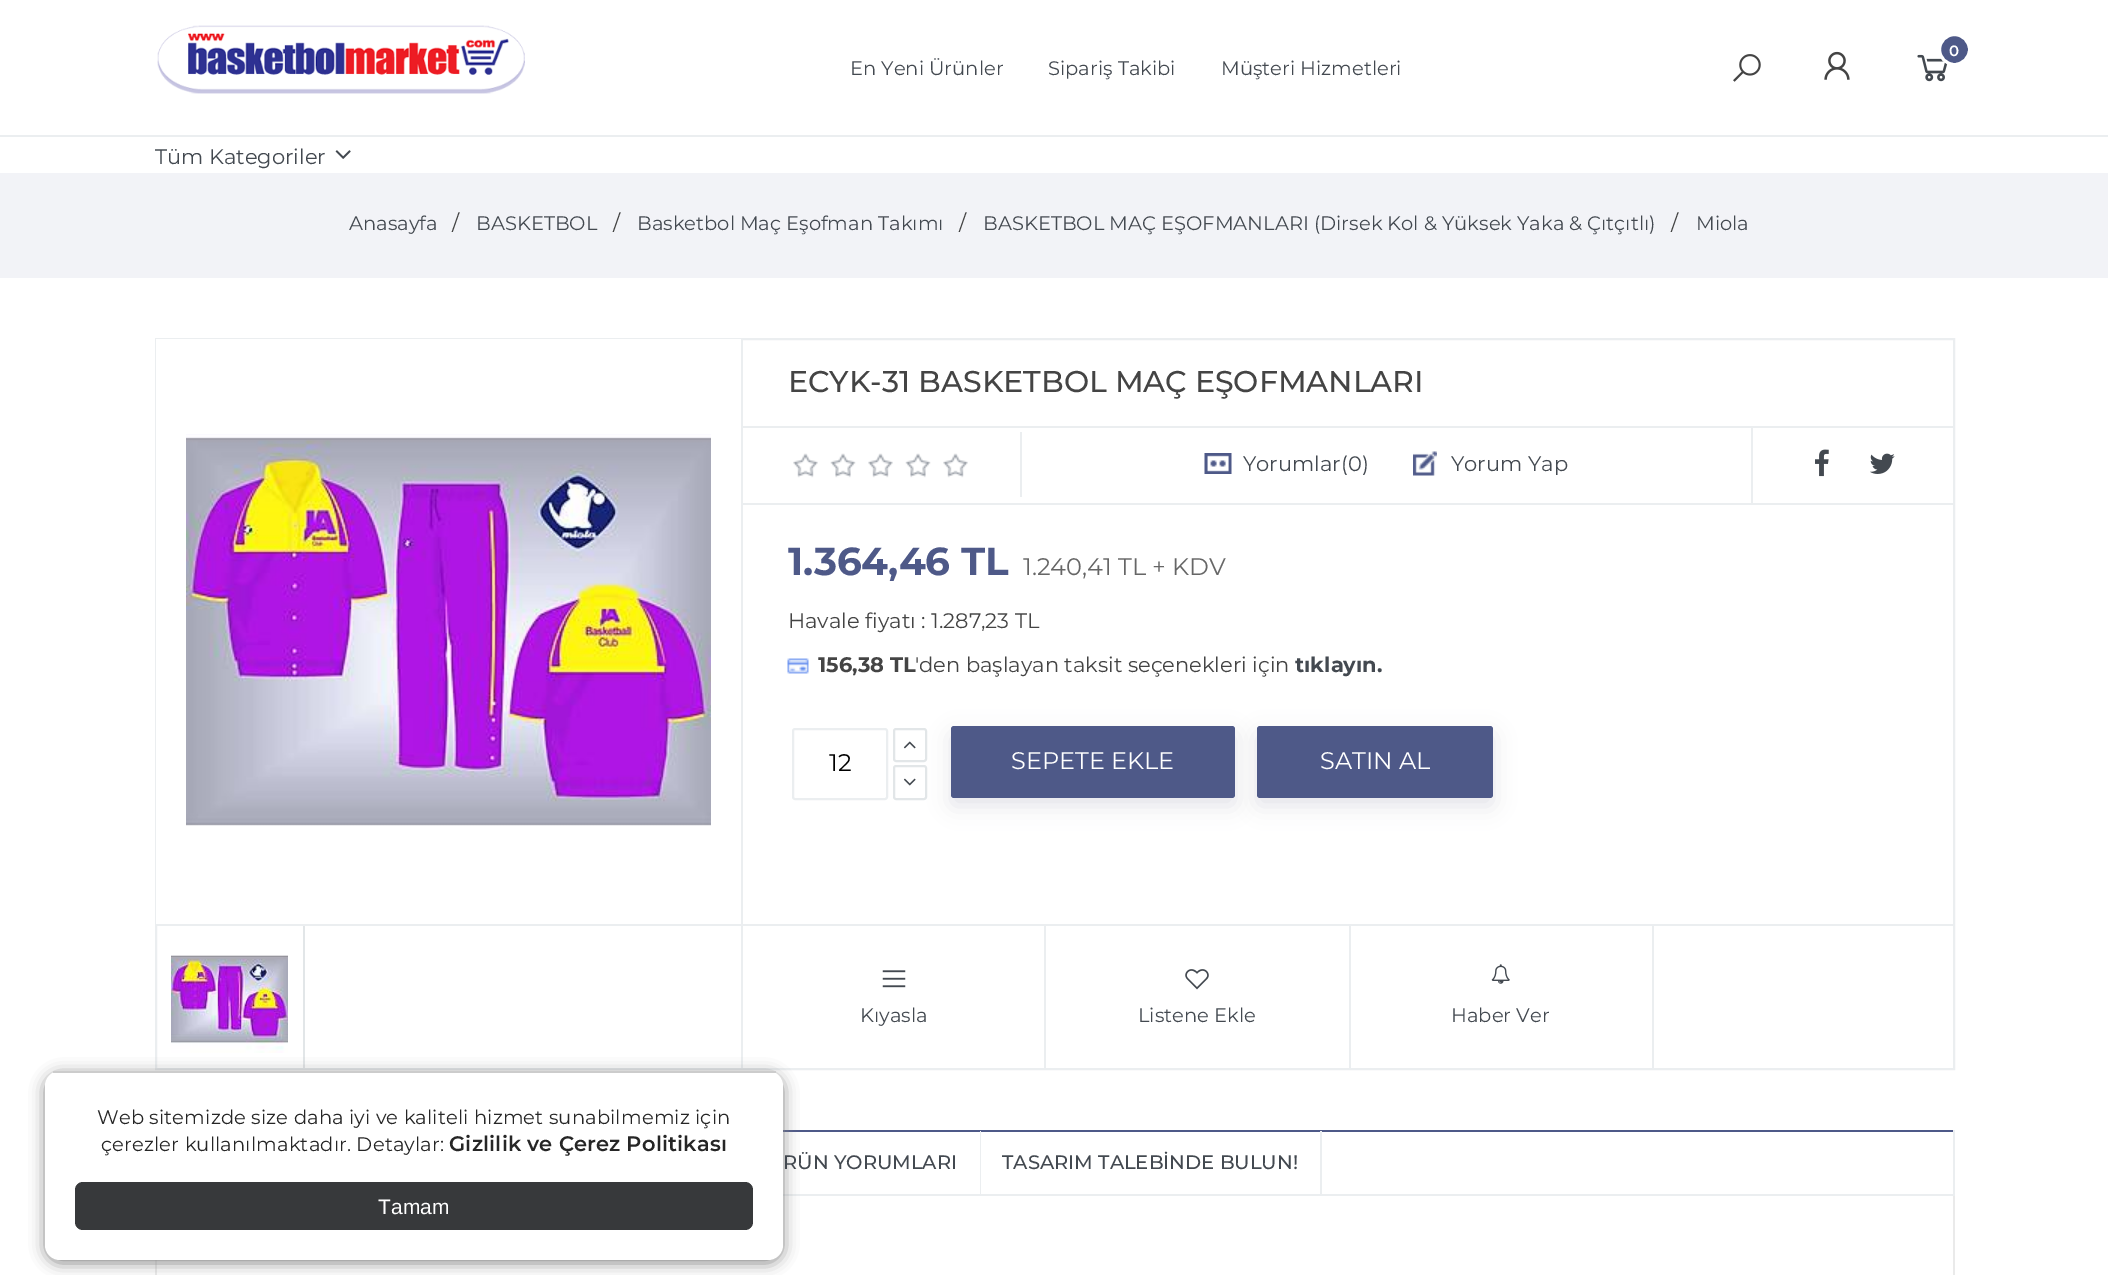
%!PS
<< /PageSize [2108 1275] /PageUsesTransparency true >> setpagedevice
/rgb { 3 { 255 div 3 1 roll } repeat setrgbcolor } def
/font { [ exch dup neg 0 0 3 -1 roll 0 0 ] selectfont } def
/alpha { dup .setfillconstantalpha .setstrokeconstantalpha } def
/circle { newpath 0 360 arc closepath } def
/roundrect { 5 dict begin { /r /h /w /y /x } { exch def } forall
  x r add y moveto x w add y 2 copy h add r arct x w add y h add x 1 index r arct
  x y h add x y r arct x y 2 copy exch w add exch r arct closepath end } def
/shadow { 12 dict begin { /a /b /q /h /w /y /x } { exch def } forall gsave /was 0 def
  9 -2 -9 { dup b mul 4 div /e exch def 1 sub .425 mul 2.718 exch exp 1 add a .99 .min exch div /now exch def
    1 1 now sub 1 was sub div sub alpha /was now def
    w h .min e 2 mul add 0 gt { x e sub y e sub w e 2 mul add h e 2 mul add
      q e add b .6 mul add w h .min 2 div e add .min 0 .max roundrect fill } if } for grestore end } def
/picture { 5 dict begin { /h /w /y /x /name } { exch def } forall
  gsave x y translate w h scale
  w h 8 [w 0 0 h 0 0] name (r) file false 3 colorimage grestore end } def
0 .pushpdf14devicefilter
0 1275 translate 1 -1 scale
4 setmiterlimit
255 255 255 rgb
0 0 2108 1275 rectfill
(img/1.rgb) 157 25 368 69 picture
(img/2.rgb) 1733 54 28 28 picture
(img/3.rgb) 1824 51 26 29 picture
(img/4.rgb) 1917 54 31 28 picture
78 89 136 rgb
1954.5 49.5 15 circle gsave fill grestore
255 255 255 rgb
3 setlinewidth
stroke
235 238 240 rgb
0 135 2108 2 rectfill
(img/5.rgb) 335 150 16 9 picture
2 setlinewidth
156 339 1798 730 rectstroke
741 339 2 729 rectfill
226 230 232 rgb
303 926 2 142 rectfill
(img/7.rgb) 171 955 117 98 picture
[
  [783 1130 1172 2 78 89 136]
  [1953 1130 2 66 235 238 240]
  [783 1194 1172 2 235 238 240]
  [155 1260 2 15 234 234 234]
] { aload pop rgb rectfill } forall
136 136 136 rgb
45 1074 738 189 15 7.5 1 shadow
255 255 255 rgb
45 1071 738 189 15 roundrect fill
204 204 204 rgb
53 1071 723 2 rectfill
55 57 59 rgb
75 1182 678 48 8 roundrect fill
[
  [0 173 2108 105 242 243 247]
  [156 339 585 585 255 255 255]
  [156 924 585 2 235 238 240]
] { aload pop rgb rectfill } forall
(img/6.rgb) 186 434 525 392 picture
[
  [743 426 1210 2 235 238 240]
  [743 503 1210 2 235 238 240]
  [1020 432 2 65 235 238 240]
] { aload pop rgb rectfill } forall
(img/8.rgb) 793 453 175 25 picture
(img/9.rgb) 1204 453 28 21 picture
(img/10.rgb) 1413 451 24 25 picture
1751 428 2 75 rectfill
(img/11.rgb) 1815 449 14 28 picture
(img/12.rgb) 1870 453 25 21 picture
(img/13.rgb) 787 658 22 16 picture
793 729 94 70 2 roundrect stroke
99 101 136 rgb
951 734 284 72 3 11 0.19 shadow
226 230 232 rgb
894 729 32 32 2 roundrect stroke
(img/14.rgb) 903 741 13 8 picture
894 766 32 33 2 roundrect stroke
(img/15.rgb) 903 778 13 8 picture
78 89 136 rgb
951 726 284 72 3 roundrect fill
99 101 136 rgb
1257 734 236 72 3 11 0.19 shadow
78 89 136 rgb
1257 726 236 72 3 roundrect fill
235 238 240 rgb
743 924 1210 2 rectfill
1044 926 2 142 rectfill
(img/16.rgb) 882 970 24 18 picture
1349 926 2 142 rectfill
(img/17.rgb) 1185 969 24 21 picture
1652 926 2 142 rectfill
(img/18.rgb) 1491 964 19 20 picture
[
  [980 1131 1 63 235 238 240]
  [1320 1131 2 63 235 238 240]
  [1953 1196 2 79 234 234 234]
] { aload pop rgb rectfill } forall
/Montserrat-SemiBold 15 font
255 255 255 rgb
1949 56 moveto (0) show
/Montserrat-Regular 19.5 font
67 73 80 rgb
[
  [(En Yeni Ürünler) 850 75]
  [(Sipariş Takibi) 1048 75]
  [(Müşteri Hizmetleri) 1221 75]
] { aload pop moveto show } forall
/Montserrat-Regular 21 font
155 164 moveto (Tüm Kategoriler) show
/Montserrat-Regular 19.5 font
38 38 38 rgb
97 1124 moveto 0.15 0 (Web sitemizde size daha iyi ve kaliteli hizmet sunabilmemiz için) ashow
101 1151 moveto 0.15 0 (çerezler kullanılmaktadır. Detaylar:) ashow
/Montserrat-SemiBold 21 font
449 1151 moveto 0.15 0 (Gizlilik ve Çerez Politikası) ashow
/LiberationSans-Regular 21 font
255 255 255 rgb
378 1214 moveto (Tamam) show
/Montserrat-Regular 19.5 font
67 73 80 rgb
349 230 moveto (Anasayfa) show
/Montserrat-Regular 21 font
68 68 68 rgb
452 230 moveto (/) show
/Montserrat-Regular 19.5 font
67 73 80 rgb
476 230 moveto (BASKETBOL) show
/Montserrat-Regular 21 font
68 68 68 rgb
613 230 moveto (/) show
/Montserrat-Regular 19.5 font
67 73 80 rgb
637 230 moveto (Basketbol Maç Eşofman Takımı) show
/Montserrat-Regular 21 font
68 68 68 rgb
959 230 moveto (/) show
/Montserrat-Regular 19.5 font
67 73 80 rgb
983 230 moveto (BASKETBOL MAÇ EŞOFMANLARI \(Dirsek Kol & Yüksek Yaka & Çıtçıtlı\)) show
/Montserrat-Regular 21 font
68 68 68 rgb
1671 230 moveto (/) show
/Montserrat-Regular 19.5 font
67 73 80 rgb
1696 230 moveto (Miola) show
/Montserrat-Medium 30 font
68 68 68 rgb
788 392 moveto (ECYK-31 BASKETBOL MAÇ EŞOFMANLARI) show
/Montserrat-Regular 21 font
67 73 80 rgb
1243 471 moveto (Yorumlar\(0\)) show
1451 471 moveto (Yorum Yap) show
/Montserrat-Bold 39 font
78 89 136 rgb
788 575 moveto (1.364,46 TL) show
/Montserrat-Regular 24 font
102 102 102 rgb
1023 575 moveto (1.240,41 TL + KDV) show
/Montserrat-Regular 21 font
68 68 68 rgb
788 628 moveto (Havale fiyatı : 1.287,23 TL) show
/Montserrat-Bold 21 font
818 672 moveto (156,38 TL) show
/Montserrat-Regular 21 font
915 672 moveto ('den başlayan taksit seçenekleri için) show
/Montserrat-Bold 21 font
67 73 80 rgb
1295 672 moveto (tıklayın.) show
/Montserrat-Regular 24 font
0 0 0 rgb
829 771 moveto (12) show
255 255 255 rgb
1011 769 moveto (SEPETE EKLE) show
1320 769 moveto (SATIN AL) show
/Montserrat-Regular 19.5 font
67 73 80 rgb
[
  [(Kıyasla) 860 1022]
  [(Listene Ekle) 1138 1022]
  [(Haber Ver) 1451 1022]
] { aload pop moveto show } forall
/Montserrat-Medium 19.5 font
783 1169 moveto (RÜN YORUMLARI) show
1002 1169 moveto (TASARIM TALEBİNDE BULUN!) show
.poppdf14devicefilter showpage
